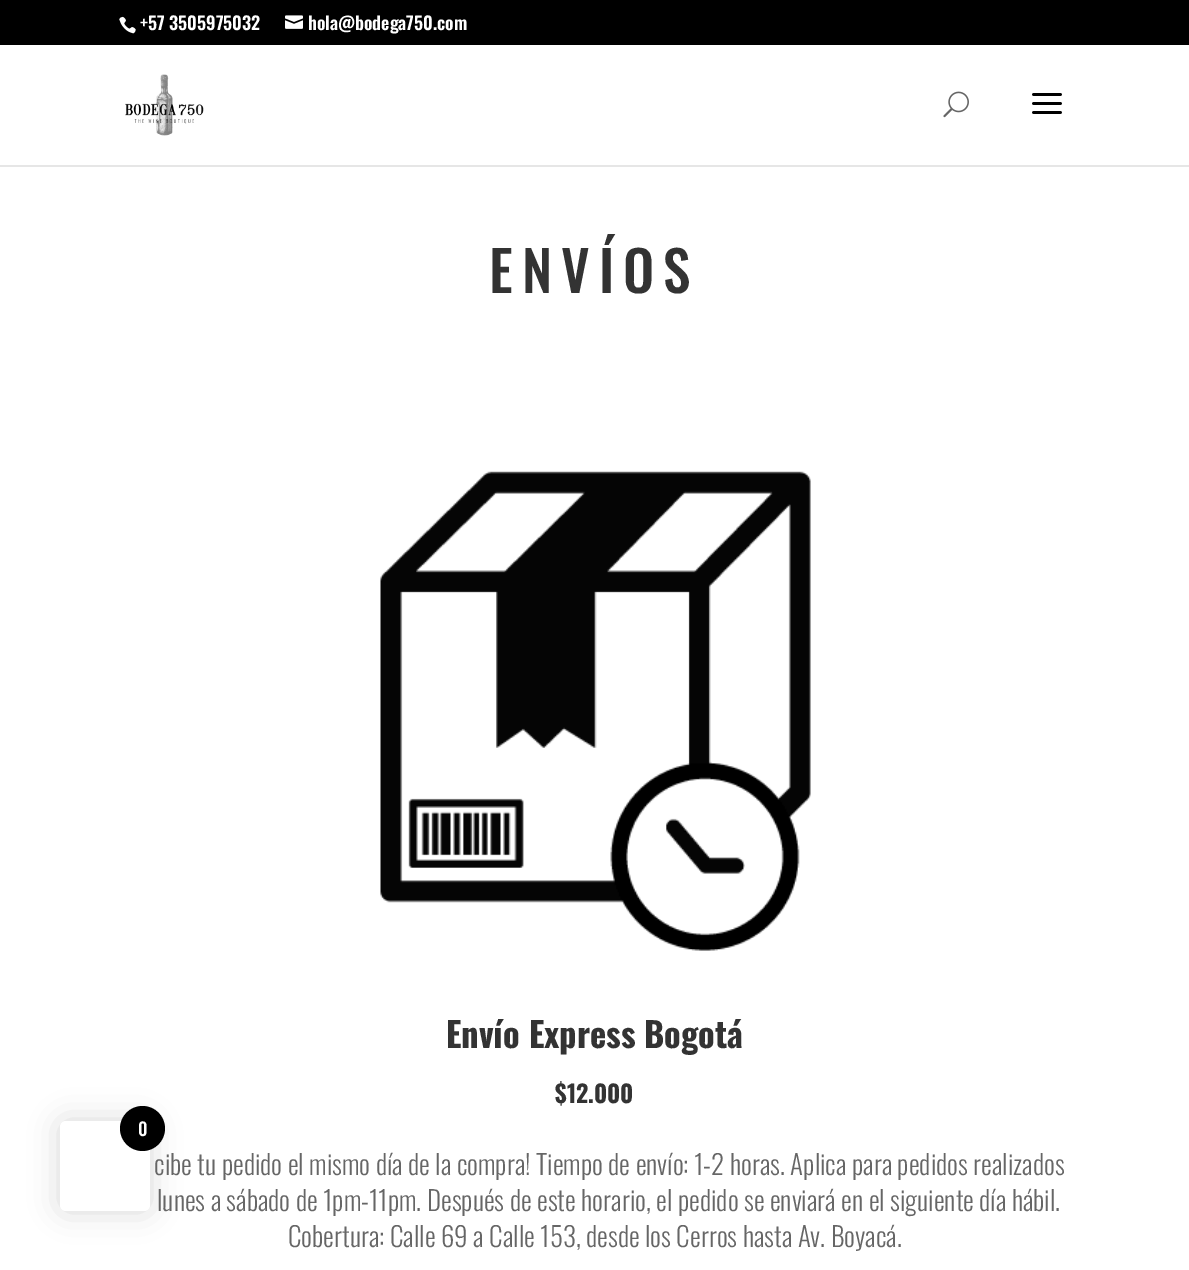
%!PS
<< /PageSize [1189 1270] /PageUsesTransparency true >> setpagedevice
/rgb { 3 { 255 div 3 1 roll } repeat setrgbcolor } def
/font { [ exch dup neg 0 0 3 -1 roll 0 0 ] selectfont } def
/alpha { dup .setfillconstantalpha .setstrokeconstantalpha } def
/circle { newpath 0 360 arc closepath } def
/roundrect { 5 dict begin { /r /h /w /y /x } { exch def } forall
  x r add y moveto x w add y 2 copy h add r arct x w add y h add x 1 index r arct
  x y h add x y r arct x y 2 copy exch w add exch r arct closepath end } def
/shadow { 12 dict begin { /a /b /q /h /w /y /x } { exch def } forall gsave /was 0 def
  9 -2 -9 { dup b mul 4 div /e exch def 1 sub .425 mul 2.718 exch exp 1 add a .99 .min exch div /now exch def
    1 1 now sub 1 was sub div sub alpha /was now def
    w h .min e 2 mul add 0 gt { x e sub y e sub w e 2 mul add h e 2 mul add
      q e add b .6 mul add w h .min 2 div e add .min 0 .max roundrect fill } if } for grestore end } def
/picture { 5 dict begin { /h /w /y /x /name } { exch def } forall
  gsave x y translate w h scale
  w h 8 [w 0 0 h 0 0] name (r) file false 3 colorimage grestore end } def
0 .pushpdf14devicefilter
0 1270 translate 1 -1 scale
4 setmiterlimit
255 255 255 rgb
0 0 1189 1270 rectfill
0 0 0 rgb
0 0 1189 45 rectfill
(img/1.rgb) 119 16 17 18 picture
(img/2.rgb) 285 15 18 14 picture
230 230 230 rgb
0 165 moveto 0 167 lineto 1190 167 lineto 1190 47 lineto 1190 165 lineto closepath fill
(img/3.rgb) 125 74 79 62 picture
(img/4.rgb) 943 91 26 27 picture
(img/5.rgb) 1032 93 30 21 picture
(img/6.rgb) 380 471 431 480 picture
0 0 0 rgb
60 1121 90 90 6 15 0.15 shadow
255 255 255 rgb
60 1121 90 90 6 roundrect fill
0 0 0 rgb
142.5 1128.5 22.5 circle fill
/Oswald-SemiBold 18 font
255 255 255 rgb
140 30 moveto (+57 3505975032) show
308 30 moveto (hola@bodega750.com) show
/Oswald-Medium 55.5 font
51 51 51 rgb
489 293 moveto 9 0 (ENVÍOS) ashow
/Oswald-Bold 34.5 font
446 1048 moveto (Envío Express Bogotá) show
/Oswald-Bold 24 font
555 1103 moveto ($12.000) show
/Oswald-Light 27 font
102 102 102 rgb
[
  [(cibe tu pedido el mismo día de la compra! Tiempo de envío: 1-2 horas. Aplica para pedidos realizados) 154 1175]
  [(lunes a sábado de 1pm-11pm. Después de este horario, el pedido se enviará en el siguiente día hábil.) 157 1211]
  [(Cobertura: Calle 69 a Calle 153, desde los Cerros hasta Av. Boyacá.) 288 1247]
] { aload pop moveto show } forall
/Oswald-Medium 18 font
255 255 255 rgb
138 1136 moveto (0) show
.poppdf14devicefilter showpage
